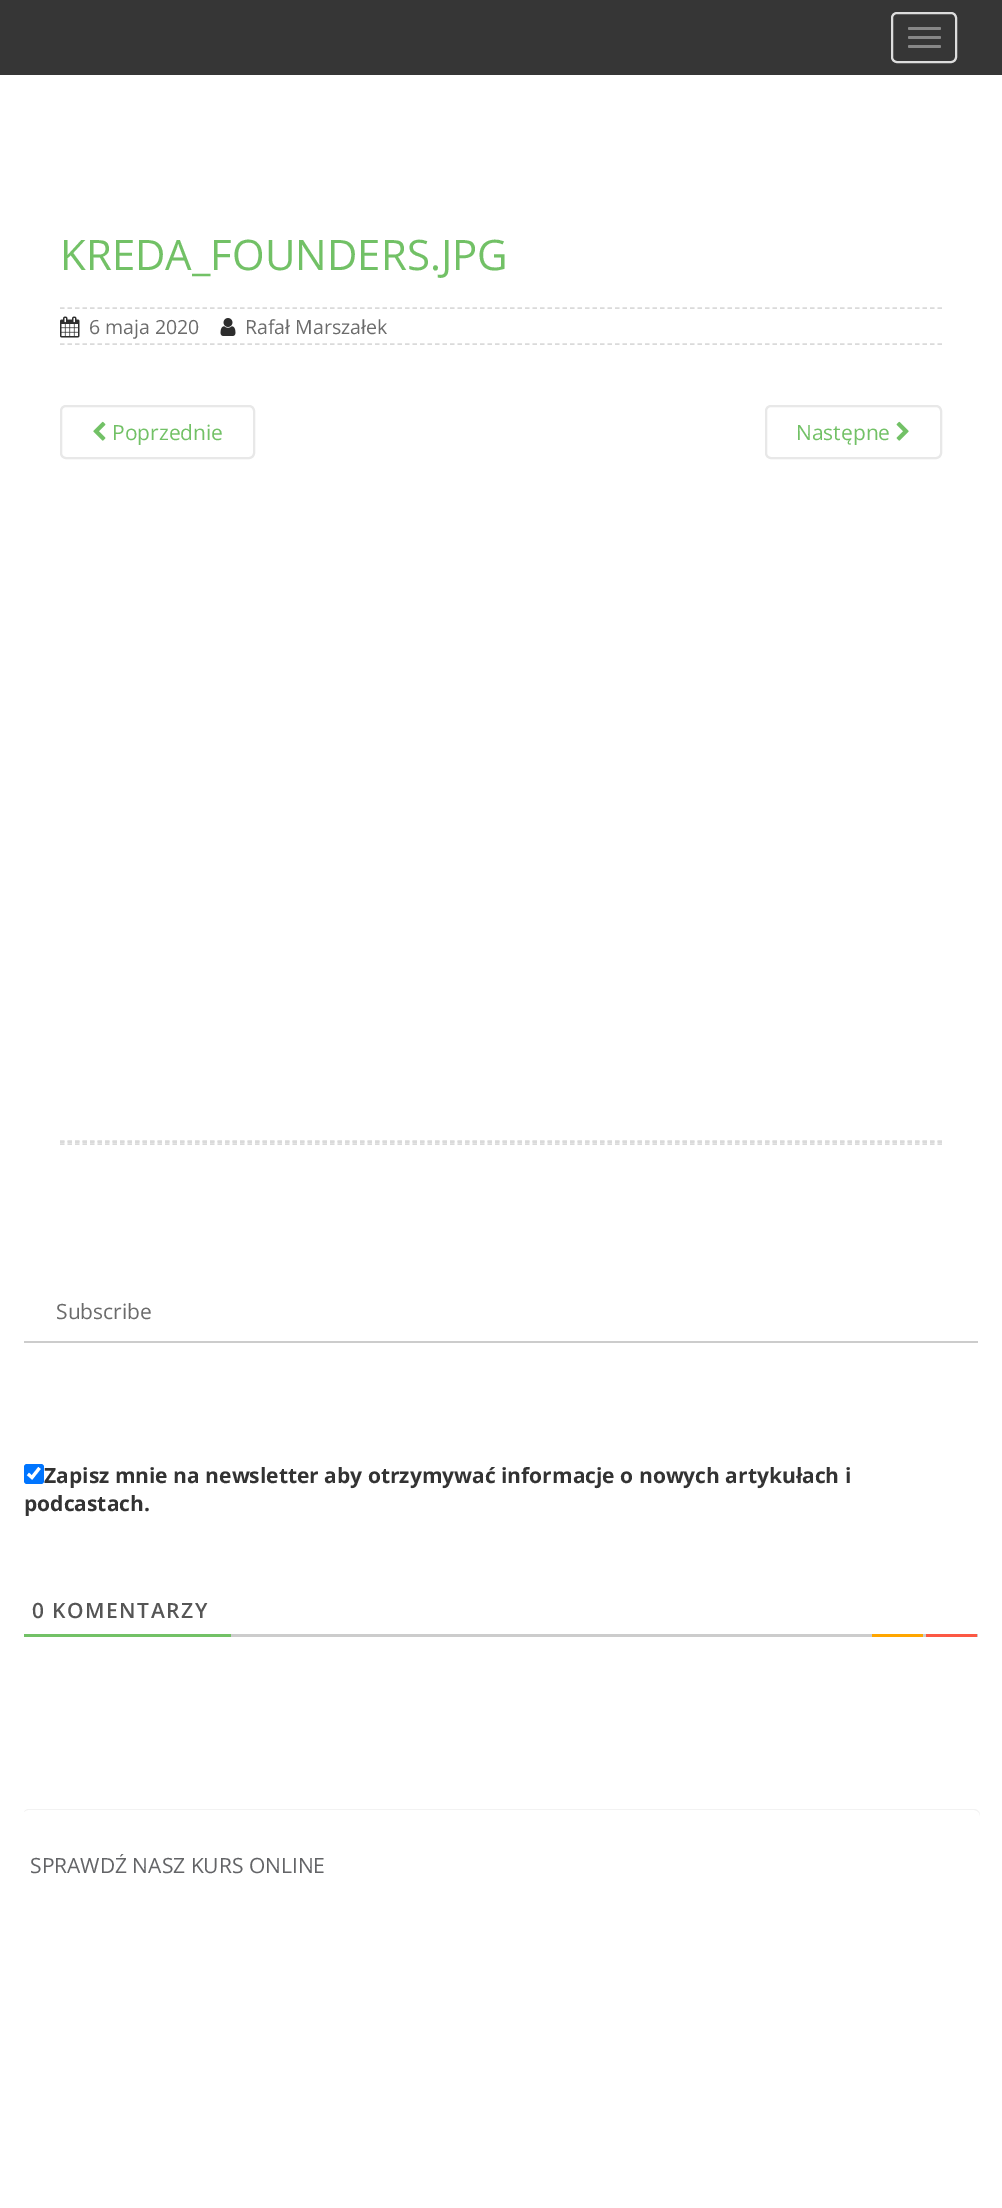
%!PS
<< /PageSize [1002 2208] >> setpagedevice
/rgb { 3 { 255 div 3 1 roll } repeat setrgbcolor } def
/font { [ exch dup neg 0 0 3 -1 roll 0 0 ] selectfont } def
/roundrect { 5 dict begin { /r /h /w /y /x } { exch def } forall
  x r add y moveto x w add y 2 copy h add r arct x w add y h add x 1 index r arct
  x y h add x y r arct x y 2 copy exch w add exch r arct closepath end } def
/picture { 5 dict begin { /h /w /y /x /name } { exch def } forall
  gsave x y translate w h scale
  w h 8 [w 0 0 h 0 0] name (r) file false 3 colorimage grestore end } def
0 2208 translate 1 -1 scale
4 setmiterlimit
255 255 255 rgb
0 0 1002 2208 rectfill
54 54 54 rgb
0 0 1002 75 rectfill
221 221 221 rgb
2 setlinewidth
892 13 64 49 5 roundrect stroke
136 136 136 rgb
908 27 33 3 1.5 roundrect fill
908 36 33 3 1.5 roundrect fill
908 45 33 3 1.5 roundrect fill
218 218 218 rgb
1.5 setlinewidth
[4.5 3] 0 setdash
60 308 moveto 942 308 lineto stroke
60 344 moveto 942 344 lineto stroke
(img/1.rgb) 60 316 20 22 picture
(img/2.rgb) 220 318 16 18 picture
232 232 232 rgb
2 setlinewidth
[] 0 setdash
61 406 193 52 5 roundrect stroke
(img/3.rgb) 93 421 13 20 picture
766 406 175 52 5 roundrect stroke
(img/4.rgb) 896 421 13 20 picture
218 218 218 rgb
1.5 setlinewidth
[4.5 3] 0 setdash
60 1141 moveto 942 1141 lineto stroke
60 1142 moveto 942 1142 lineto stroke
60 1144 moveto 942 1144 lineto stroke
204 204 204 rgb
24 1341 954 2 rectfill
0 117 255 rgb
24 1464 20 20 3 roundrect fill
255 255 255 rgb
3.1 setlinewidth
[] 0 setdash
28 1474 moveto 32 1477.5 lineto 39.5 1468 lineto stroke
[
  [231 1634 747 3 204 204 204]
  [24 1634 207 3 114 193 102]
  [872 1634 51 3 255 166 0]
  [926 1634 51 3 252 88 68]
] { aload pop rgb rectfill } forall
242 242 242 rgb
28 1810 moveto 974 1810 lineto 977 1810 980 1813 980 1816 curveto 980 1815 lineto 980 1812 977 1809 974 1809 curveto 29 1809 lineto 27 1809 25 1810 24 1812 curveto 25 1811 27 1810 28 1810 curveto closepath fill
/OpenSans-Regular 42 font
114 193 102 rgb
60 270 moveto (KREDA_FOUNDERS.JPG) show
/OpenSans-Regular 19.5 font
107 107 107 rgb
89 334 moveto (6 maja 2020) show
245 334 moveto (Rafał Marszałek) show
/OpenSans-Regular 21 font
114 193 102 rgb
112 440 moveto (Poprzednie) show
796 440 moveto (Następne) show
107 107 107 rgb
56 1319 moveto (Subscribe) show
/OpenSans-Bold 21 font
51 51 51 rgb
44 1483 moveto (Zapisz mnie na newsletter aby otrzymywać informacje o nowych artykułach i) show
24 1511 moveto (podcastach.) show
/OpenSans-SemiBold 21 font
85 85 85 rgb
32 1618 moveto 1.5 0 (0 KOMENTARZY) ashow
gsave
30 1854 942 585 rectclip
/OpenSans-Regular 21 font
99 100 103 rgb
30 1873 moveto (SPRAWDŹ NASZ KURS ONLINE) show
grestore
showpage
